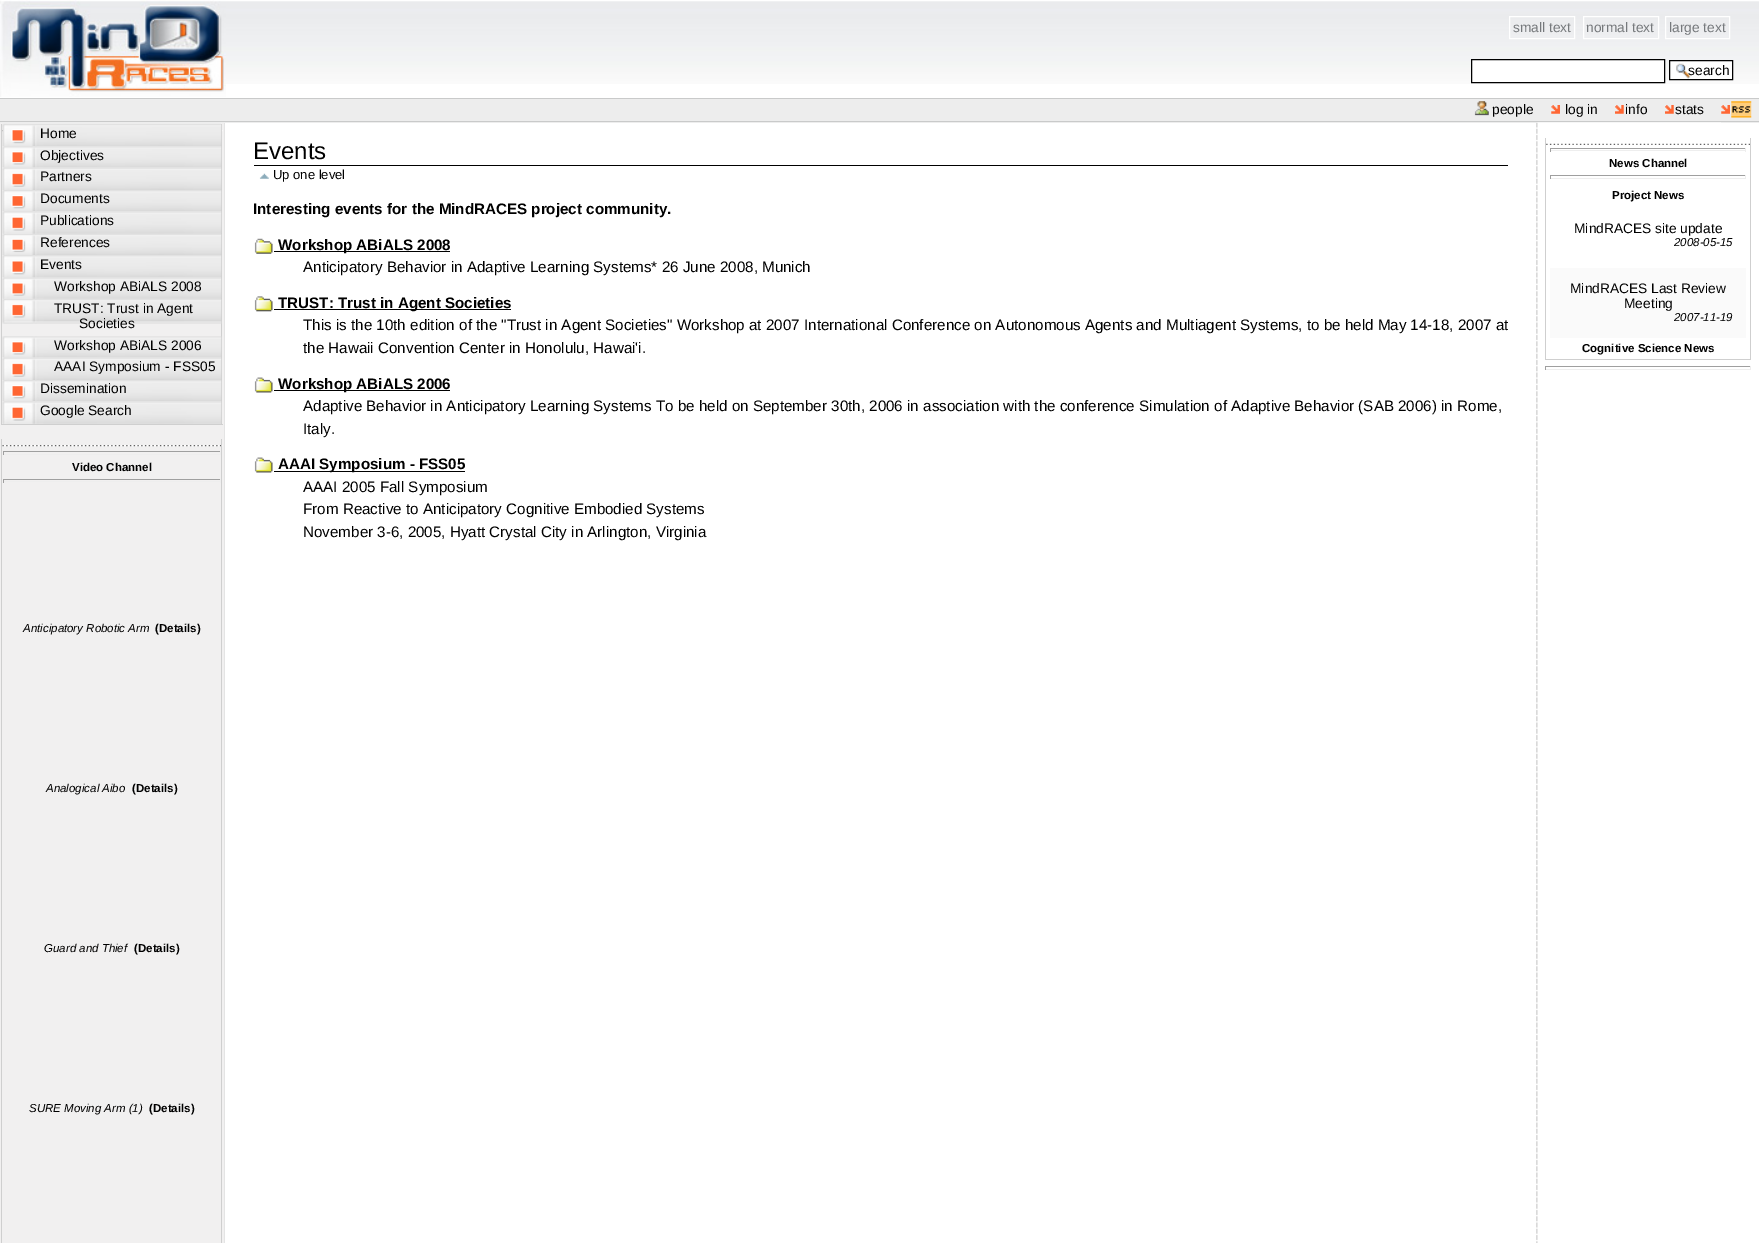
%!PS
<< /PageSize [1759 1243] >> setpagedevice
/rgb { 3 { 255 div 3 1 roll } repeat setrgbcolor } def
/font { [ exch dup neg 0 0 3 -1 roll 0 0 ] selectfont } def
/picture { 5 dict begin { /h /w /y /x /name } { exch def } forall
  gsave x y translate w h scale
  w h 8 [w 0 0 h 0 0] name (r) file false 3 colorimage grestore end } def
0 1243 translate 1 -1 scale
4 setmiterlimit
255 255 255 rgb
0 0 1759 1243 rectfill
(img/1.rgb) 226 1 1533 83 picture
(img/2.rgb) 0 0 226 97 picture
1509.5 16.5 65 22 rectstroke
1583.5 16.5 75 22 rectstroke
1665.5 16.5 64 22 rectstroke
1471.5 59.5 moveto 1664.5 59.5 lineto 1664.5 82.5 lineto 1471.5 82.5 lineto closepath gsave fill grestore
0 0 0 rgb
stroke
255 255 255 rgb
1670 61 62 18 rectfill
(img/3.rgb) 1676 63 15 16 picture
0 0 0 rgb
1669.5 60.5 63 19 rectstroke
[
  [0 99 1759 24 237 237 237]
  [0 98 1759 1 201 202 202]
  [0 121 1759 1 201 202 202]
] { aload pop rgb rectfill } forall
(img/4.rgb) 1474 101 15 15 picture
(img/5.rgb) 1551 105 9 9 picture
(img/6.rgb) 1615 105 9 9 picture
(img/6.rgb) 1665 105 9 9 picture
(img/5.rgb) 1721 105 9 9 picture
(img/7.rgb) 1731 101 21 17 picture
241 240 240 rgb
0 123 224 1120 rectfill
228 228 228 rgb
224 123 1 1120 rectfill
(img/8.rgb) 2 130 221 2 picture
[
  [221 124 1 301 207 207 207]
  [1 424 222 1 207 207 207]
  [1 124 1 301 207 207 207]
] { aload pop rgb rectfill } forall
(img/9.rgb) 2 123 220 24 picture
(img/10.rgb) 2 146 220 22 picture
(img/11.rgb) 2 167 220 23 picture
(img/12.rgb) 2 190 220 22 picture
(img/13.rgb) 2 211 220 23 picture
(img/14.rgb) 2 234 220 21 picture
(img/15.rgb) 2 255 220 23 picture
(img/16.rgb) 2 277 220 22 picture
(img/17.rgb) 2 299 220 25 picture
(img/18.rgb) 2 336 220 22 picture
(img/11.rgb) 2 357 220 23 picture
(img/12.rgb) 2 380 220 22 picture
(img/13.rgb) 2 401 220 23 picture
(img/8.rgb) 2 445 221 2 picture
[
  [221 439 1 804 207 207 207]
  [1 439 1 804 207 207 207]
  [3 451 218 1 159 159 159]
  [220 451 1 4 238 238 238]
  [3 454 218 1 238 238 238]
  [3 451 1 4 159 159 159]
  [3 479 218 1 159 159 159]
  [220 479 1 4 238 238 238]
  [3 481 218 1 238 238 238]
  [3 479 1 4 159 159 159]
  [254 165 1254 1 0 0 0]
] { aload pop rgb rectfill } forall
(img/19.rgb) 259 173 10 6 picture
(img/20.rgb) 254 238 19 16 picture
274 251 176 1 rectfill
(img/21.rgb) 254 296 19 16 picture
274 309 237 1 rectfill
(img/22.rgb) 254 377 19 16 picture
274 390 176 1 rectfill
(img/22.rgb) 254 457 19 16 picture
274 471 191 1 rectfill
(img/23.rgb) 1536 122 185 1121 picture
(img/24.rgb) 1546 143 204 2 picture
[
  [1750 138 1 222 207 207 207]
  [1545 359 206 1 207 207 207]
  [1545 138 1 222 207 207 207]
  [1550 148 196 1 159 159 159]
  [1745 148 1 4 238 238 238]
  [1550 150 196 1 238 238 238]
  [1550 148 1 4 159 159 159]
  [1550 175 196 1 159 159 159]
  [1745 175 1 4 238 238 238]
  [1550 178 196 1 238 238 238]
  [1550 175 1 4 159 159 159]
  [1550 268 196 70 250 250 250]
  [1545 366 206 1 159 159 159]
  [1750 366 1 4 238 238 238]
  [1545 369 206 1 238 238 238]
  [1545 366 1 4 159 159 159]
] { aload pop rgb rectfill } forall
/LiberationSans-Regular 13.75 font
118 121 124 rgb
[
  [(small text) 1513 32]
  [(normal text) 1586 32]
  [(large text) 1669 32]
] { aload pop moveto show } forall
0 0 0 rgb
[
  [(search) 1688 75]
  [(people) 1492 114]
  [(log in) 1565 114]
  [(info) 1625 114]
  [(stats) 1675 114]
  [(Home) 40 138]
  [(Objectives) 40 160]
  [(Partners) 40 181]
  [(Documents) 40 203]
  [(Publications) 40 225]
  [(References) 40 247]
  [(Events) 40 269]
  [(Workshop ABiALS 2008) 54 291]
  [(TRUST: Trust in Agent) 54 313]
  [(Societies) 79 328]
  [(Workshop ABiALS 2006) 54 350]
  [(AAAI Symposium - FSS05) 54 371]
  [(Dissemination) 40 393]
  [(Google Search) 40 415]
] { aload pop moveto show } forall
/LiberationSans-Bold 11.5 font
72 471 moveto (Video Channel) show
/LiberationSans-Italic 11.5 font
23 632 moveto (Anticipatory Robotic Arm) show
/LiberationSans-Bold 11.5 font
155 632 moveto (\(Details\)) show
/LiberationSans-Italic 11.5 font
46 792 moveto (Analogical Aibo) show
/LiberationSans-Bold 11.5 font
132 792 moveto (\(Details\)) show
/LiberationSans-Italic 11.5 font
44 952 moveto (Guard and Thief) show
/LiberationSans-Bold 11.5 font
134 952 moveto (\(Details\)) show
/LiberationSans-Italic 11.5 font
29 1112 moveto (SURE Moving Arm \(1\)) show
/LiberationSans-Bold 11.5 font
149 1112 moveto (\(Details\)) show
/LiberationSans-Regular 24 font
253 159 moveto (Events) show
/LiberationSans-Regular 13 font
273 179 moveto (Up one level) show
/LiberationSans-Bold 15.18 font
253 214 moveto (Interesting events for the MindRACES project community.) show
278 250 moveto (Workshop ABiALS 2008) show
/LiberationSans-Regular 15.18 font
303 272 moveto (Anticipatory Behavior in Adaptive Learning Systems* 26 June 2008, Munich) show
/LiberationSans-Bold 15.18 font
278 308 moveto (TRUST: Trust in Agent Societies) show
/LiberationSans-Regular 15.18 font
303 330 moveto (This is the 10th edition of the "Trust in Agent Societies" Workshop at 2007 International Conference on Autonomous Agents and Multiagent Systems, to be held May 14-18, 2007 at) show
303 353 moveto (the Hawaii Convention Center in Honolulu, Hawai'i.) show
/LiberationSans-Bold 15.18 font
278 389 moveto (Workshop ABiALS 2006) show
/LiberationSans-Regular 15.18 font
303 411 moveto (Adaptive Behavior in Anticipatory Learning Systems To be held on September 30th, 2006 in association with the conference Simulation of Adaptive Behavior \(SAB 2006\) in Rome,) show
303 434 moveto (Italy.) show
/LiberationSans-Bold 15.18 font
278 469 moveto (AAAI Symposium - FSS05) show
/LiberationSans-Regular 15.18 font
[
  [(AAAI 2005 Fall Symposium) 303 492]
  [(From Reactive to Anticipatory Cognitive Embodied Systems) 303 514]
  [(November 3-6, 2005, Hyatt Crystal City in Arlington, Virginia) 303 537]
] { aload pop moveto show } forall
/LiberationSans-Bold 11.5 font
1609 167 moveto (News Channel) show
1612 199 moveto (Project News) show
/LiberationSans-Regular 13.75 font
1574 233 moveto (MindRACES site update) show
/LiberationSans-Italic 11.5 font
1674 246 moveto (2008-05-15) show
/LiberationSans-Regular 13.75 font
1570 293 moveto (MindRACES Last Review) show
1624 308 moveto (Meeting) show
/LiberationSans-Italic 11.5 font
1674 321 moveto (2007-11-19) show
/LiberationSans-Bold 11.5 font
1582 352 moveto (Cognitive Science News) show
showpage
